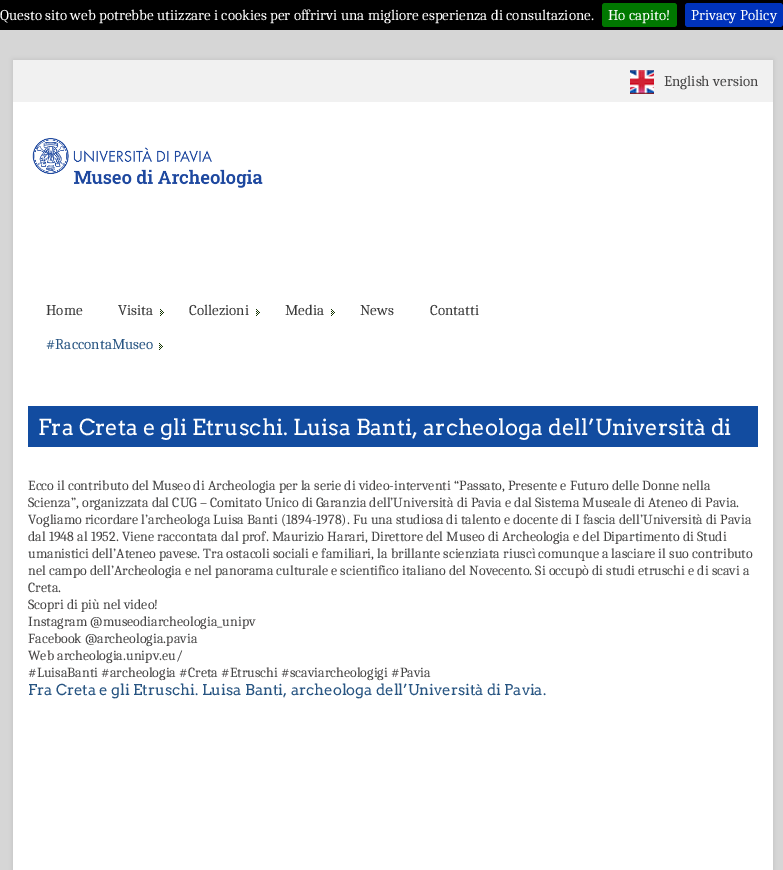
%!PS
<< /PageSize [783 870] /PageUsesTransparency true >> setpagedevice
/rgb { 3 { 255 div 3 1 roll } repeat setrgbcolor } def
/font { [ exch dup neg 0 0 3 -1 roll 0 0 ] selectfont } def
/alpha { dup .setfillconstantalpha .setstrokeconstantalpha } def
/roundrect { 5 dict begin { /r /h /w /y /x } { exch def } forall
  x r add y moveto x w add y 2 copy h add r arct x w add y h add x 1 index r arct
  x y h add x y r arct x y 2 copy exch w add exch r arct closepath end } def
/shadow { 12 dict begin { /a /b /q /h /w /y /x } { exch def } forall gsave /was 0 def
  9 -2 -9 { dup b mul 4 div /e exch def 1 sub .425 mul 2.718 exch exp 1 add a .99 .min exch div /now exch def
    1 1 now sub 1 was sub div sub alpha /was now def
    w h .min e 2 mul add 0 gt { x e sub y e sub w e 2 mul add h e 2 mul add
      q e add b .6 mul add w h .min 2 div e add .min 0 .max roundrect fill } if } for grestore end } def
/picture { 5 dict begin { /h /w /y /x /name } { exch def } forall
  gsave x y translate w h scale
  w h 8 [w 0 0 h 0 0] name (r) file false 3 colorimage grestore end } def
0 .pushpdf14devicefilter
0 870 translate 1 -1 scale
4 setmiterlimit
214 214 214 rgb
0 0 783 870 rectfill
0 0 0 rgb
0 0 783 30 rectfill
0 119 0 rgb
602 3 75 24 3 roundrect fill
0 51 187 rgb
685 3 98 24 3 roundrect fill
193 193 193 rgb
13 60 760 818 0 2.5 1 shadow
255 255 255 rgb
13 102 760 768 rectfill
241 241 241 rgb
13 60 760 42 rectfill
(img/1.rgb) 630 70 24 24 picture
(img/2.rgb) 32 138 231 50 picture
(img/3.rgb) 160 309 4 7 picture
(img/3.rgb) 256 309 4 7 picture
(img/3.rgb) 331 309 4 7 picture
(img/3.rgb) 159 343 4 7 picture
18 76 160 rgb
28 406 730 41 rectfill
/Caladea-Regular 15 font
255 255 255 rgb
[
  [(Questo sito web potrebbe utiizzare i cookies per offrirvi una migliore esperienza di consultazione.) 0 20]
  [(Ho capito!) 608 20]
  [(Privacy Policy) 691 20]
] { aload pop moveto show } forall
69 68 68 rgb
664 86 moveto (English version) show
57 57 57 rgb
[
  [(Home) 46 315]
  [(Visita) 118 315]
  [(Collezioni) 189 315]
  [(Media) 285 315]
  [(News) 360 315]
  [(Contatti) 430 315]
] { aload pop moveto show } forall
40 85 130 rgb
46 349 moveto (#RaccontaMuseo) show
/Arvo-Regular 22 font
255 255 255 rgb
38 435 moveto (Fra Creta e gli Etruschi. Luisa Banti, archeologa dell’Università di) show
/Caladea-Regular 14 font
69 68 68 rgb
[
  [(Ecco il contributo del Museo di Archeologia per la serie di video-interventi “Passato, Presente e Futuro delle Donne nella) 28 490]
  [(Scienza”, organizzata dal CUG – Comitato Unico di Garanzia dell’Università di Pavia e dal Sistema Museale di Ateneo di Pavia.) 28 507]
  [(Vogliamo ricordare l’archeologa Luisa Banti \(1894-1978\). Fu una studiosa di talento e docente di I fascia dell’Università di Pavia) 28 524]
  [(dal 1948 al 1952. Viene raccontata dal prof. Maurizio Harari, Direttore del Museo di Archeologia e del Dipartimento di Studi) 28 541]
  [(umanistici dell’Ateneo pavese. Tra ostacoli sociali e familiari, la brillante scienziata riuscì comunque a lasciare il suo contributo) 28 558]
  [(nel campo dell’Archeologia e nel panorama culturale e scientifico italiano del Novecento. Si occupò di studi etruschi e di scavi a) 28 575]
  [(Creta.) 28 592]
  [(Scopri di più nel video!) 28 609]
  [(Instagram @museodiarcheologia_unipv) 28 626]
  [(Facebook @archeologia.pavia) 28 643]
  [(Web archeologia.unipv.eu/) 28 660]
  [(#LuisaBanti #archeologia #Creta #Etruschi #scaviarcheologigi #Pavia) 28 677]
] { aload pop moveto show } forall
/Arvo-Regular 15 font
40 85 130 rgb
28 695 moveto (Fra Creta e gli Etruschi. Luisa Banti, archeologa dell’Università di Pavia.) show
.poppdf14devicefilter showpage
